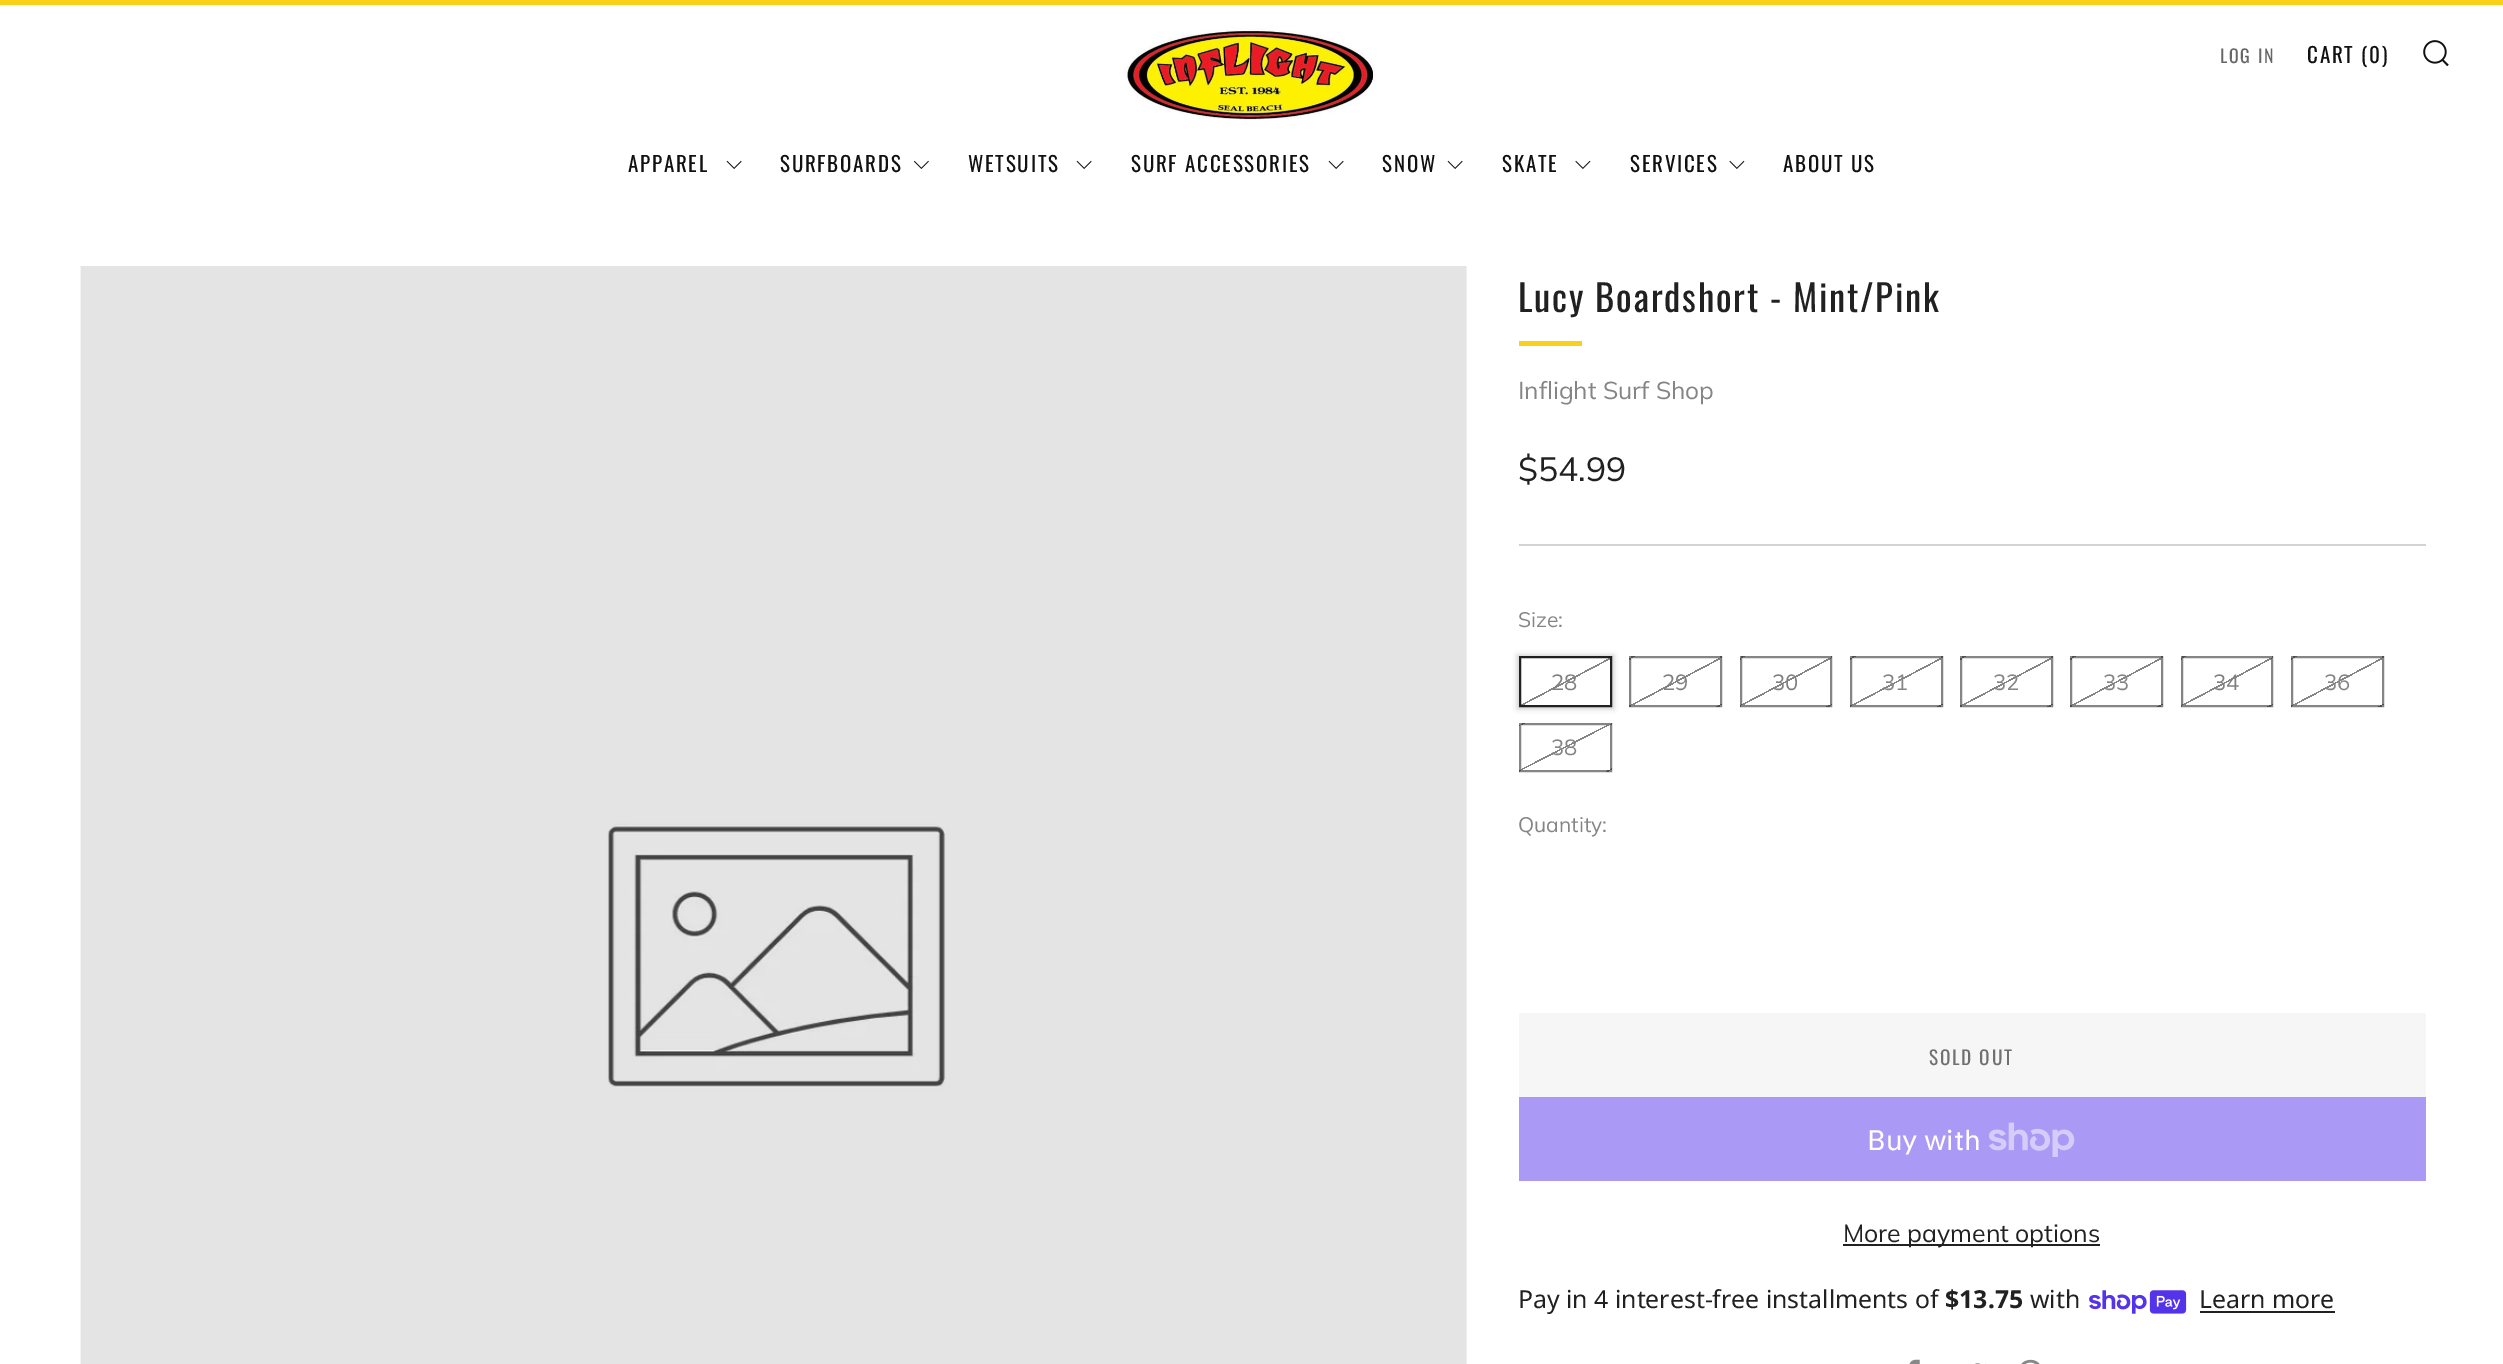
%!PS
<< /PageSize [2503 1364] /PageUsesTransparency true >> setpagedevice
/rgb { 3 { 255 div 3 1 roll } repeat setrgbcolor } def
/font { [ exch dup neg 0 0 3 -1 roll 0 0 ] selectfont } def
/alpha { dup .setfillconstantalpha .setstrokeconstantalpha } def
/roundrect { 5 dict begin { /r /h /w /y /x } { exch def } forall
  x r add y moveto x w add y 2 copy h add r arct x w add y h add x 1 index r arct
  x y h add x y r arct x y 2 copy exch w add exch r arct closepath end } def
/shadow { 12 dict begin { /a /b /q /h /w /y /x } { exch def } forall gsave /was 0 def
  9 -2 -9 { dup b mul 4 div /e exch def 1 sub .425 mul 2.718 exch exp 1 add a .99 .min exch div /now exch def
    1 1 now sub 1 was sub div sub alpha /was now def
    w h .min e 2 mul add 0 gt { x e sub y e sub w e 2 mul add h e 2 mul add
      q e add b .6 mul add w h .min 2 div e add .min 0 .max roundrect fill } if } for grestore end } def
/picture { 5 dict begin { /h /w /y /x /name } { exch def } forall
  gsave x y translate w h scale
  w h 8 [w 0 0 h 0 0] name (r) file false 3 colorimage grestore end } def
0 .pushpdf14devicefilter
0 1364 translate 1 -1 scale
4 setmiterlimit
255 255 255 rgb
0 0 2503 1364 rectfill
250 208 24 rgb
0 0 2503 5 rectfill
(img/1.rgb) 1126 27 249 93 picture
(img/2.rgb) 2423 40 26 27 picture
(img/3.rgb) 726 160 16 9 picture
(img/4.rgb) 913 160 16 9 picture
(img/3.rgb) 1076 160 16 9 picture
(img/3.rgb) 1328 160 16 9 picture
(img/3.rgb) 1447 160 16 9 picture
(img/5.rgb) 1575 160 16 9 picture
(img/5.rgb) 1729 160 16 9 picture
(img/6.rgb) 80 266 1387 1098 picture
1519 341 63 5 rectfill
211 211 211 rgb
1519 544 907 2 rectfill
33 33 33 rgb
1517 655 97 54 0 2.5 0.2 shadow
gsave 1521 658 moveto 1610 658 lineto 1610 705 lineto 1521 705 lineto closepath clip newpath
<< /ShadingType 2 /ColorSpace /DeviceRGB /Coords [1585 719 1546 645] /Extend [true true] /Function << /FunctionType 3 /Domain [0 1] /Functions [<< /FunctionType 2 /Domain [0 1] /C0 [1 1 1] /C1 [1 1 1] /N 1 >> << /FunctionType 2 /Domain [0 1] /C0 [0.522 0.522 0.522] /C1 [0.522 0.522 0.522] /N 1 >> << /FunctionType 2 /Domain [0 1] /C0 [1 1 1] /C1 [1 1 1] /N 1 >>] /Bounds [0.49 0.51] /Encode [0 1 0 1 0 1] >> >> shfill grestore
2 setlinewidth
1520 657 91 49 rectstroke
gsave 1631 656 moveto 1635 656 lineto 1635 658 lineto 1631 658 lineto closepath clip newpath
<< /ShadingType 2 /ColorSpace /DeviceRGB /Coords [1695 671 1656 597] /Extend [true true] /Function << /FunctionType 3 /Domain [0 1] /Functions [<< /FunctionType 2 /Domain [0 1] /C0 [1 1 1] /C1 [1 1 1] /N 1 >> << /FunctionType 2 /Domain [0 1] /C0 [0.522 0.522 0.522] /C1 [0.522 0.522 0.522] /N 1 >> << /FunctionType 2 /Domain [0 1] /C0 [1 1 1] /C1 [1 1 1] /N 1 >>] /Bounds [0.49 0.51] /Encode [0 1 0 1 0 1] >> >> shfill grestore
gsave 1720 656 moveto 1722 656 lineto 1722 658 lineto 1720 658 lineto closepath clip newpath
<< /ShadingType 2 /ColorSpace /DeviceRGB /Coords [1784 671 1745 597] /Extend [true true] /Function << /FunctionType 3 /Domain [0 1] /Functions [<< /FunctionType 2 /Domain [0 1] /C0 [1 1 1] /C1 [1 1 1] /N 1 >> << /FunctionType 2 /Domain [0 1] /C0 [0.522 0.522 0.522] /C1 [0.522 0.522 0.522] /N 1 >> << /FunctionType 2 /Domain [0 1] /C0 [1 1 1] /C1 [1 1 1] /N 1 >>] /Bounds [0.49 0.51] /Encode [0 1 0 1 0 1] >> >> shfill grestore
gsave 1629 658 moveto 1631 658 lineto 1631 660 lineto 1629 660 lineto closepath clip newpath
<< /ShadingType 2 /ColorSpace /DeviceRGB /Coords [1606 719 1567 645] /Extend [true true] /Function << /FunctionType 3 /Domain [0 1] /Functions [<< /FunctionType 2 /Domain [0 1] /C0 [1 1 1] /C1 [1 1 1] /N 1 >> << /FunctionType 2 /Domain [0 1] /C0 [0.522 0.522 0.522] /C1 [0.522 0.522 0.522] /N 1 >> << /FunctionType 2 /Domain [0 1] /C0 [1 1 1] /C1 [1 1 1] /N 1 >>] /Bounds [0.49 0.51] /Encode [0 1 0 1 0 1] >> >> shfill grestore
gsave 1631 658 moveto 1720 658 lineto 1720 705 lineto 1631 705 lineto closepath clip newpath
<< /ShadingType 2 /ColorSpace /DeviceRGB /Coords [1695 719 1656 645] /Extend [true true] /Function << /FunctionType 3 /Domain [0 1] /Functions [<< /FunctionType 2 /Domain [0 1] /C0 [1 1 1] /C1 [1 1 1] /N 1 >> << /FunctionType 2 /Domain [0 1] /C0 [0.522 0.522 0.522] /C1 [0.522 0.522 0.522] /N 1 >> << /FunctionType 2 /Domain [0 1] /C0 [1 1 1] /C1 [1 1 1] /N 1 >>] /Bounds [0.49 0.51] /Encode [0 1 0 1 0 1] >> >> shfill grestore
gsave 1720 704 moveto 1722 704 lineto 1722 705 lineto 1720 705 lineto closepath clip newpath
<< /ShadingType 2 /ColorSpace /DeviceRGB /Coords [1784 719 1745 645] /Extend [true true] /Function << /FunctionType 3 /Domain [0 1] /Functions [<< /FunctionType 2 /Domain [0 1] /C0 [1 1 1] /C1 [1 1 1] /N 1 >> << /FunctionType 2 /Domain [0 1] /C0 [0.522 0.522 0.522] /C1 [0.522 0.522 0.522] /N 1 >> << /FunctionType 2 /Domain [0 1] /C0 [1 1 1] /C1 [1 1 1] /N 1 >>] /Bounds [0.49 0.51] /Encode [0 1 0 1 0 1] >> >> shfill grestore
gsave 1629 705 moveto 1631 705 lineto 1631 707 lineto 1629 707 lineto closepath clip newpath
<< /ShadingType 2 /ColorSpace /DeviceRGB /Coords [1606 766 1567 692] /Extend [true true] /Function << /FunctionType 3 /Domain [0 1] /Functions [<< /FunctionType 2 /Domain [0 1] /C0 [1 1 1] /C1 [1 1 1] /N 1 >> << /FunctionType 2 /Domain [0 1] /C0 [0.522 0.522 0.522] /C1 [0.522 0.522 0.522] /N 1 >> << /FunctionType 2 /Domain [0 1] /C0 [1 1 1] /C1 [1 1 1] /N 1 >>] /Bounds [0.49 0.51] /Encode [0 1 0 1 0 1] >> >> shfill grestore
gsave 1716 705 moveto 1720 705 lineto 1720 707 lineto 1716 707 lineto closepath clip newpath
<< /ShadingType 2 /ColorSpace /DeviceRGB /Coords [1695 766 1656 692] /Extend [true true] /Function << /FunctionType 3 /Domain [0 1] /Functions [<< /FunctionType 2 /Domain [0 1] /C0 [1 1 1] /C1 [1 1 1] /N 1 >> << /FunctionType 2 /Domain [0 1] /C0 [0.522 0.522 0.522] /C1 [0.522 0.522 0.522] /N 1 >> << /FunctionType 2 /Domain [0 1] /C0 [1 1 1] /C1 [1 1 1] /N 1 >>] /Bounds [0.49 0.51] /Encode [0 1 0 1 0 1] >> >> shfill grestore
0.55 alpha
1630 657 91 49 rectstroke
1 alpha
gsave 1741 656 moveto 1745 656 lineto 1745 658 lineto 1741 658 lineto closepath clip newpath
<< /ShadingType 2 /ColorSpace /DeviceRGB /Coords [1805 671 1766 597] /Extend [true true] /Function << /FunctionType 3 /Domain [0 1] /Functions [<< /FunctionType 2 /Domain [0 1] /C0 [1 1 1] /C1 [1 1 1] /N 1 >> << /FunctionType 2 /Domain [0 1] /C0 [0.522 0.522 0.522] /C1 [0.522 0.522 0.522] /N 1 >> << /FunctionType 2 /Domain [0 1] /C0 [1 1 1] /C1 [1 1 1] /N 1 >>] /Bounds [0.49 0.51] /Encode [0 1 0 1 0 1] >> >> shfill grestore
gsave 1831 656 moveto 1832 656 lineto 1832 658 lineto 1831 658 lineto closepath clip newpath
<< /ShadingType 2 /ColorSpace /DeviceRGB /Coords [1895 671 1856 597] /Extend [true true] /Function << /FunctionType 3 /Domain [0 1] /Functions [<< /FunctionType 2 /Domain [0 1] /C0 [1 1 1] /C1 [1 1 1] /N 1 >> << /FunctionType 2 /Domain [0 1] /C0 [0.522 0.522 0.522] /C1 [0.522 0.522 0.522] /N 1 >> << /FunctionType 2 /Domain [0 1] /C0 [1 1 1] /C1 [1 1 1] /N 1 >>] /Bounds [0.49 0.51] /Encode [0 1 0 1 0 1] >> >> shfill grestore
gsave 1740 658 moveto 1741 658 lineto 1741 660 lineto 1740 660 lineto closepath clip newpath
<< /ShadingType 2 /ColorSpace /DeviceRGB /Coords [1716 719 1677 645] /Extend [true true] /Function << /FunctionType 3 /Domain [0 1] /Functions [<< /FunctionType 2 /Domain [0 1] /C0 [1 1 1] /C1 [1 1 1] /N 1 >> << /FunctionType 2 /Domain [0 1] /C0 [0.522 0.522 0.522] /C1 [0.522 0.522 0.522] /N 1 >> << /FunctionType 2 /Domain [0 1] /C0 [1 1 1] /C1 [1 1 1] /N 1 >>] /Bounds [0.49 0.51] /Encode [0 1 0 1 0 1] >> >> shfill grestore
gsave 1741 658 moveto 1831 658 lineto 1831 705 lineto 1741 705 lineto closepath clip newpath
<< /ShadingType 2 /ColorSpace /DeviceRGB /Coords [1805 719 1766 645] /Extend [true true] /Function << /FunctionType 3 /Domain [0 1] /Functions [<< /FunctionType 2 /Domain [0 1] /C0 [1 1 1] /C1 [1 1 1] /N 1 >> << /FunctionType 2 /Domain [0 1] /C0 [0.522 0.522 0.522] /C1 [0.522 0.522 0.522] /N 1 >> << /FunctionType 2 /Domain [0 1] /C0 [1 1 1] /C1 [1 1 1] /N 1 >>] /Bounds [0.49 0.51] /Encode [0 1 0 1 0 1] >> >> shfill grestore
gsave 1831 704 moveto 1832 704 lineto 1832 705 lineto 1831 705 lineto closepath clip newpath
<< /ShadingType 2 /ColorSpace /DeviceRGB /Coords [1895 719 1856 645] /Extend [true true] /Function << /FunctionType 3 /Domain [0 1] /Functions [<< /FunctionType 2 /Domain [0 1] /C0 [1 1 1] /C1 [1 1 1] /N 1 >> << /FunctionType 2 /Domain [0 1] /C0 [0.522 0.522 0.522] /C1 [0.522 0.522 0.522] /N 1 >> << /FunctionType 2 /Domain [0 1] /C0 [1 1 1] /C1 [1 1 1] /N 1 >>] /Bounds [0.49 0.51] /Encode [0 1 0 1 0 1] >> >> shfill grestore
gsave 1740 705 moveto 1741 705 lineto 1741 707 lineto 1740 707 lineto closepath clip newpath
<< /ShadingType 2 /ColorSpace /DeviceRGB /Coords [1716 766 1677 692] /Extend [true true] /Function << /FunctionType 3 /Domain [0 1] /Functions [<< /FunctionType 2 /Domain [0 1] /C0 [1 1 1] /C1 [1 1 1] /N 1 >> << /FunctionType 2 /Domain [0 1] /C0 [0.522 0.522 0.522] /C1 [0.522 0.522 0.522] /N 1 >> << /FunctionType 2 /Domain [0 1] /C0 [1 1 1] /C1 [1 1 1] /N 1 >>] /Bounds [0.49 0.51] /Encode [0 1 0 1 0 1] >> >> shfill grestore
gsave 1826 705 moveto 1831 705 lineto 1831 707 lineto 1826 707 lineto closepath clip newpath
<< /ShadingType 2 /ColorSpace /DeviceRGB /Coords [1805 766 1766 692] /Extend [true true] /Function << /FunctionType 3 /Domain [0 1] /Functions [<< /FunctionType 2 /Domain [0 1] /C0 [1 1 1] /C1 [1 1 1] /N 1 >> << /FunctionType 2 /Domain [0 1] /C0 [0.522 0.522 0.522] /C1 [0.522 0.522 0.522] /N 1 >> << /FunctionType 2 /Domain [0 1] /C0 [1 1 1] /C1 [1 1 1] /N 1 >>] /Bounds [0.49 0.51] /Encode [0 1 0 1 0 1] >> >> shfill grestore
0.55 alpha
1741 657 90 49 rectstroke
1 alpha
gsave 1852 656 moveto 1856 656 lineto 1856 658 lineto 1852 658 lineto closepath clip newpath
<< /ShadingType 2 /ColorSpace /DeviceRGB /Coords [1916 671 1877 597] /Extend [true true] /Function << /FunctionType 3 /Domain [0 1] /Functions [<< /FunctionType 2 /Domain [0 1] /C0 [1 1 1] /C1 [1 1 1] /N 1 >> << /FunctionType 2 /Domain [0 1] /C0 [0.522 0.522 0.522] /C1 [0.522 0.522 0.522] /N 1 >> << /FunctionType 2 /Domain [0 1] /C0 [1 1 1] /C1 [1 1 1] /N 1 >>] /Bounds [0.49 0.51] /Encode [0 1 0 1 0 1] >> >> shfill grestore
gsave 1941 656 moveto 1943 656 lineto 1943 658 lineto 1941 658 lineto closepath clip newpath
<< /ShadingType 2 /ColorSpace /DeviceRGB /Coords [2005 671 1966 597] /Extend [true true] /Function << /FunctionType 3 /Domain [0 1] /Functions [<< /FunctionType 2 /Domain [0 1] /C0 [1 1 1] /C1 [1 1 1] /N 1 >> << /FunctionType 2 /Domain [0 1] /C0 [0.522 0.522 0.522] /C1 [0.522 0.522 0.522] /N 1 >> << /FunctionType 2 /Domain [0 1] /C0 [1 1 1] /C1 [1 1 1] /N 1 >>] /Bounds [0.49 0.51] /Encode [0 1 0 1 0 1] >> >> shfill grestore
gsave 1850 658 moveto 1852 658 lineto 1852 660 lineto 1850 660 lineto closepath clip newpath
<< /ShadingType 2 /ColorSpace /DeviceRGB /Coords [1826 719 1787 645] /Extend [true true] /Function << /FunctionType 3 /Domain [0 1] /Functions [<< /FunctionType 2 /Domain [0 1] /C0 [1 1 1] /C1 [1 1 1] /N 1 >> << /FunctionType 2 /Domain [0 1] /C0 [0.522 0.522 0.522] /C1 [0.522 0.522 0.522] /N 1 >> << /FunctionType 2 /Domain [0 1] /C0 [1 1 1] /C1 [1 1 1] /N 1 >>] /Bounds [0.49 0.51] /Encode [0 1 0 1 0 1] >> >> shfill grestore
gsave 1852 658 moveto 1941 658 lineto 1941 705 lineto 1852 705 lineto closepath clip newpath
<< /ShadingType 2 /ColorSpace /DeviceRGB /Coords [1916 719 1877 645] /Extend [true true] /Function << /FunctionType 3 /Domain [0 1] /Functions [<< /FunctionType 2 /Domain [0 1] /C0 [1 1 1] /C1 [1 1 1] /N 1 >> << /FunctionType 2 /Domain [0 1] /C0 [0.522 0.522 0.522] /C1 [0.522 0.522 0.522] /N 1 >> << /FunctionType 2 /Domain [0 1] /C0 [1 1 1] /C1 [1 1 1] /N 1 >>] /Bounds [0.49 0.51] /Encode [0 1 0 1 0 1] >> >> shfill grestore
gsave 1941 704 moveto 1943 704 lineto 1943 705 lineto 1941 705 lineto closepath clip newpath
<< /ShadingType 2 /ColorSpace /DeviceRGB /Coords [2005 719 1966 645] /Extend [true true] /Function << /FunctionType 3 /Domain [0 1] /Functions [<< /FunctionType 2 /Domain [0 1] /C0 [1 1 1] /C1 [1 1 1] /N 1 >> << /FunctionType 2 /Domain [0 1] /C0 [0.522 0.522 0.522] /C1 [0.522 0.522 0.522] /N 1 >> << /FunctionType 2 /Domain [0 1] /C0 [1 1 1] /C1 [1 1 1] /N 1 >>] /Bounds [0.49 0.51] /Encode [0 1 0 1 0 1] >> >> shfill grestore
gsave 1850 705 moveto 1852 705 lineto 1852 707 lineto 1850 707 lineto closepath clip newpath
<< /ShadingType 2 /ColorSpace /DeviceRGB /Coords [1826 766 1787 692] /Extend [true true] /Function << /FunctionType 3 /Domain [0 1] /Functions [<< /FunctionType 2 /Domain [0 1] /C0 [1 1 1] /C1 [1 1 1] /N 1 >> << /FunctionType 2 /Domain [0 1] /C0 [0.522 0.522 0.522] /C1 [0.522 0.522 0.522] /N 1 >> << /FunctionType 2 /Domain [0 1] /C0 [1 1 1] /C1 [1 1 1] /N 1 >>] /Bounds [0.49 0.51] /Encode [0 1 0 1 0 1] >> >> shfill grestore
gsave 1937 705 moveto 1941 705 lineto 1941 707 lineto 1937 707 lineto closepath clip newpath
<< /ShadingType 2 /ColorSpace /DeviceRGB /Coords [1916 766 1877 692] /Extend [true true] /Function << /FunctionType 3 /Domain [0 1] /Functions [<< /FunctionType 2 /Domain [0 1] /C0 [1 1 1] /C1 [1 1 1] /N 1 >> << /FunctionType 2 /Domain [0 1] /C0 [0.522 0.522 0.522] /C1 [0.522 0.522 0.522] /N 1 >> << /FunctionType 2 /Domain [0 1] /C0 [1 1 1] /C1 [1 1 1] /N 1 >>] /Bounds [0.49 0.51] /Encode [0 1 0 1 0 1] >> >> shfill grestore
0.55 alpha
1851 657 91 49 rectstroke
1 alpha
gsave 1962 656 moveto 1966 656 lineto 1966 658 lineto 1962 658 lineto closepath clip newpath
<< /ShadingType 2 /ColorSpace /DeviceRGB /Coords [2026 671 1987 597] /Extend [true true] /Function << /FunctionType 3 /Domain [0 1] /Functions [<< /FunctionType 2 /Domain [0 1] /C0 [1 1 1] /C1 [1 1 1] /N 1 >> << /FunctionType 2 /Domain [0 1] /C0 [0.522 0.522 0.522] /C1 [0.522 0.522 0.522] /N 1 >> << /FunctionType 2 /Domain [0 1] /C0 [1 1 1] /C1 [1 1 1] /N 1 >>] /Bounds [0.49 0.51] /Encode [0 1 0 1 0 1] >> >> shfill grestore
gsave 2051 656 moveto 2053 656 lineto 2053 658 lineto 2051 658 lineto closepath clip newpath
<< /ShadingType 2 /ColorSpace /DeviceRGB /Coords [2115 671 2076 597] /Extend [true true] /Function << /FunctionType 3 /Domain [0 1] /Functions [<< /FunctionType 2 /Domain [0 1] /C0 [1 1 1] /C1 [1 1 1] /N 1 >> << /FunctionType 2 /Domain [0 1] /C0 [0.522 0.522 0.522] /C1 [0.522 0.522 0.522] /N 1 >> << /FunctionType 2 /Domain [0 1] /C0 [1 1 1] /C1 [1 1 1] /N 1 >>] /Bounds [0.49 0.51] /Encode [0 1 0 1 0 1] >> >> shfill grestore
gsave 1960 658 moveto 1962 658 lineto 1962 660 lineto 1960 660 lineto closepath clip newpath
<< /ShadingType 2 /ColorSpace /DeviceRGB /Coords [1937 719 1898 645] /Extend [true true] /Function << /FunctionType 3 /Domain [0 1] /Functions [<< /FunctionType 2 /Domain [0 1] /C0 [1 1 1] /C1 [1 1 1] /N 1 >> << /FunctionType 2 /Domain [0 1] /C0 [0.522 0.522 0.522] /C1 [0.522 0.522 0.522] /N 1 >> << /FunctionType 2 /Domain [0 1] /C0 [1 1 1] /C1 [1 1 1] /N 1 >>] /Bounds [0.49 0.51] /Encode [0 1 0 1 0 1] >> >> shfill grestore
gsave 1962 658 moveto 2051 658 lineto 2051 705 lineto 1962 705 lineto closepath clip newpath
<< /ShadingType 2 /ColorSpace /DeviceRGB /Coords [2026 719 1987 645] /Extend [true true] /Function << /FunctionType 3 /Domain [0 1] /Functions [<< /FunctionType 2 /Domain [0 1] /C0 [1 1 1] /C1 [1 1 1] /N 1 >> << /FunctionType 2 /Domain [0 1] /C0 [0.522 0.522 0.522] /C1 [0.522 0.522 0.522] /N 1 >> << /FunctionType 2 /Domain [0 1] /C0 [1 1 1] /C1 [1 1 1] /N 1 >>] /Bounds [0.49 0.51] /Encode [0 1 0 1 0 1] >> >> shfill grestore
gsave 2051 704 moveto 2053 704 lineto 2053 705 lineto 2051 705 lineto closepath clip newpath
<< /ShadingType 2 /ColorSpace /DeviceRGB /Coords [2115 719 2076 645] /Extend [true true] /Function << /FunctionType 3 /Domain [0 1] /Functions [<< /FunctionType 2 /Domain [0 1] /C0 [1 1 1] /C1 [1 1 1] /N 1 >> << /FunctionType 2 /Domain [0 1] /C0 [0.522 0.522 0.522] /C1 [0.522 0.522 0.522] /N 1 >> << /FunctionType 2 /Domain [0 1] /C0 [1 1 1] /C1 [1 1 1] /N 1 >>] /Bounds [0.49 0.51] /Encode [0 1 0 1 0 1] >> >> shfill grestore
gsave 1960 705 moveto 1962 705 lineto 1962 707 lineto 1960 707 lineto closepath clip newpath
<< /ShadingType 2 /ColorSpace /DeviceRGB /Coords [1937 766 1898 692] /Extend [true true] /Function << /FunctionType 3 /Domain [0 1] /Functions [<< /FunctionType 2 /Domain [0 1] /C0 [1 1 1] /C1 [1 1 1] /N 1 >> << /FunctionType 2 /Domain [0 1] /C0 [0.522 0.522 0.522] /C1 [0.522 0.522 0.522] /N 1 >> << /FunctionType 2 /Domain [0 1] /C0 [1 1 1] /C1 [1 1 1] /N 1 >>] /Bounds [0.49 0.51] /Encode [0 1 0 1 0 1] >> >> shfill grestore
gsave 2047 705 moveto 2051 705 lineto 2051 707 lineto 2047 707 lineto closepath clip newpath
<< /ShadingType 2 /ColorSpace /DeviceRGB /Coords [2026 766 1987 692] /Extend [true true] /Function << /FunctionType 3 /Domain [0 1] /Functions [<< /FunctionType 2 /Domain [0 1] /C0 [1 1 1] /C1 [1 1 1] /N 1 >> << /FunctionType 2 /Domain [0 1] /C0 [0.522 0.522 0.522] /C1 [0.522 0.522 0.522] /N 1 >> << /FunctionType 2 /Domain [0 1] /C0 [1 1 1] /C1 [1 1 1] /N 1 >>] /Bounds [0.49 0.51] /Encode [0 1 0 1 0 1] >> >> shfill grestore
0.55 alpha
1961 657 91 49 rectstroke
1 alpha
gsave 2072 656 moveto 2076 656 lineto 2076 658 lineto 2072 658 lineto closepath clip newpath
<< /ShadingType 2 /ColorSpace /DeviceRGB /Coords [2136 671 2097 597] /Extend [true true] /Function << /FunctionType 3 /Domain [0 1] /Functions [<< /FunctionType 2 /Domain [0 1] /C0 [1 1 1] /C1 [1 1 1] /N 1 >> << /FunctionType 2 /Domain [0 1] /C0 [0.522 0.522 0.522] /C1 [0.522 0.522 0.522] /N 1 >> << /FunctionType 2 /Domain [0 1] /C0 [1 1 1] /C1 [1 1 1] /N 1 >>] /Bounds [0.49 0.51] /Encode [0 1 0 1 0 1] >> >> shfill grestore
gsave 2161 656 moveto 2163 656 lineto 2163 658 lineto 2161 658 lineto closepath clip newpath
<< /ShadingType 2 /ColorSpace /DeviceRGB /Coords [2225 671 2186 597] /Extend [true true] /Function << /FunctionType 3 /Domain [0 1] /Functions [<< /FunctionType 2 /Domain [0 1] /C0 [1 1 1] /C1 [1 1 1] /N 1 >> << /FunctionType 2 /Domain [0 1] /C0 [0.522 0.522 0.522] /C1 [0.522 0.522 0.522] /N 1 >> << /FunctionType 2 /Domain [0 1] /C0 [1 1 1] /C1 [1 1 1] /N 1 >>] /Bounds [0.49 0.51] /Encode [0 1 0 1 0 1] >> >> shfill grestore
gsave 2070 658 moveto 2072 658 lineto 2072 660 lineto 2070 660 lineto closepath clip newpath
<< /ShadingType 2 /ColorSpace /DeviceRGB /Coords [2047 719 2008 645] /Extend [true true] /Function << /FunctionType 3 /Domain [0 1] /Functions [<< /FunctionType 2 /Domain [0 1] /C0 [1 1 1] /C1 [1 1 1] /N 1 >> << /FunctionType 2 /Domain [0 1] /C0 [0.522 0.522 0.522] /C1 [0.522 0.522 0.522] /N 1 >> << /FunctionType 2 /Domain [0 1] /C0 [1 1 1] /C1 [1 1 1] /N 1 >>] /Bounds [0.49 0.51] /Encode [0 1 0 1 0 1] >> >> shfill grestore
gsave 2072 658 moveto 2161 658 lineto 2161 705 lineto 2072 705 lineto closepath clip newpath
<< /ShadingType 2 /ColorSpace /DeviceRGB /Coords [2136 719 2097 645] /Extend [true true] /Function << /FunctionType 3 /Domain [0 1] /Functions [<< /FunctionType 2 /Domain [0 1] /C0 [1 1 1] /C1 [1 1 1] /N 1 >> << /FunctionType 2 /Domain [0 1] /C0 [0.522 0.522 0.522] /C1 [0.522 0.522 0.522] /N 1 >> << /FunctionType 2 /Domain [0 1] /C0 [1 1 1] /C1 [1 1 1] /N 1 >>] /Bounds [0.49 0.51] /Encode [0 1 0 1 0 1] >> >> shfill grestore
gsave 2161 704 moveto 2163 704 lineto 2163 705 lineto 2161 705 lineto closepath clip newpath
<< /ShadingType 2 /ColorSpace /DeviceRGB /Coords [2225 719 2186 645] /Extend [true true] /Function << /FunctionType 3 /Domain [0 1] /Functions [<< /FunctionType 2 /Domain [0 1] /C0 [1 1 1] /C1 [1 1 1] /N 1 >> << /FunctionType 2 /Domain [0 1] /C0 [0.522 0.522 0.522] /C1 [0.522 0.522 0.522] /N 1 >> << /FunctionType 2 /Domain [0 1] /C0 [1 1 1] /C1 [1 1 1] /N 1 >>] /Bounds [0.49 0.51] /Encode [0 1 0 1 0 1] >> >> shfill grestore
gsave 2070 705 moveto 2072 705 lineto 2072 707 lineto 2070 707 lineto closepath clip newpath
<< /ShadingType 2 /ColorSpace /DeviceRGB /Coords [2047 766 2008 692] /Extend [true true] /Function << /FunctionType 3 /Domain [0 1] /Functions [<< /FunctionType 2 /Domain [0 1] /C0 [1 1 1] /C1 [1 1 1] /N 1 >> << /FunctionType 2 /Domain [0 1] /C0 [0.522 0.522 0.522] /C1 [0.522 0.522 0.522] /N 1 >> << /FunctionType 2 /Domain [0 1] /C0 [1 1 1] /C1 [1 1 1] /N 1 >>] /Bounds [0.49 0.51] /Encode [0 1 0 1 0 1] >> >> shfill grestore
gsave 2157 705 moveto 2161 705 lineto 2161 707 lineto 2157 707 lineto closepath clip newpath
<< /ShadingType 2 /ColorSpace /DeviceRGB /Coords [2136 766 2097 692] /Extend [true true] /Function << /FunctionType 3 /Domain [0 1] /Functions [<< /FunctionType 2 /Domain [0 1] /C0 [1 1 1] /C1 [1 1 1] /N 1 >> << /FunctionType 2 /Domain [0 1] /C0 [0.522 0.522 0.522] /C1 [0.522 0.522 0.522] /N 1 >> << /FunctionType 2 /Domain [0 1] /C0 [1 1 1] /C1 [1 1 1] /N 1 >>] /Bounds [0.49 0.51] /Encode [0 1 0 1 0 1] >> >> shfill grestore
0.55 alpha
2071 657 91 49 rectstroke
1 alpha
gsave 2182 656 moveto 2186 656 lineto 2186 658 lineto 2182 658 lineto closepath clip newpath
<< /ShadingType 2 /ColorSpace /DeviceRGB /Coords [2246 671 2207 597] /Extend [true true] /Function << /FunctionType 3 /Domain [0 1] /Functions [<< /FunctionType 2 /Domain [0 1] /C0 [1 1 1] /C1 [1 1 1] /N 1 >> << /FunctionType 2 /Domain [0 1] /C0 [0.522 0.522 0.522] /C1 [0.522 0.522 0.522] /N 1 >> << /FunctionType 2 /Domain [0 1] /C0 [1 1 1] /C1 [1 1 1] /N 1 >>] /Bounds [0.49 0.51] /Encode [0 1 0 1 0 1] >> >> shfill grestore
gsave 2272 656 moveto 2273 656 lineto 2273 658 lineto 2272 658 lineto closepath clip newpath
<< /ShadingType 2 /ColorSpace /DeviceRGB /Coords [2336 671 2297 597] /Extend [true true] /Function << /FunctionType 3 /Domain [0 1] /Functions [<< /FunctionType 2 /Domain [0 1] /C0 [1 1 1] /C1 [1 1 1] /N 1 >> << /FunctionType 2 /Domain [0 1] /C0 [0.522 0.522 0.522] /C1 [0.522 0.522 0.522] /N 1 >> << /FunctionType 2 /Domain [0 1] /C0 [1 1 1] /C1 [1 1 1] /N 1 >>] /Bounds [0.49 0.51] /Encode [0 1 0 1 0 1] >> >> shfill grestore
gsave 2181 658 moveto 2182 658 lineto 2182 660 lineto 2181 660 lineto closepath clip newpath
<< /ShadingType 2 /ColorSpace /DeviceRGB /Coords [2157 719 2118 645] /Extend [true true] /Function << /FunctionType 3 /Domain [0 1] /Functions [<< /FunctionType 2 /Domain [0 1] /C0 [1 1 1] /C1 [1 1 1] /N 1 >> << /FunctionType 2 /Domain [0 1] /C0 [0.522 0.522 0.522] /C1 [0.522 0.522 0.522] /N 1 >> << /FunctionType 2 /Domain [0 1] /C0 [1 1 1] /C1 [1 1 1] /N 1 >>] /Bounds [0.49 0.51] /Encode [0 1 0 1 0 1] >> >> shfill grestore
gsave 2182 658 moveto 2272 658 lineto 2272 705 lineto 2182 705 lineto closepath clip newpath
<< /ShadingType 2 /ColorSpace /DeviceRGB /Coords [2246 719 2207 645] /Extend [true true] /Function << /FunctionType 3 /Domain [0 1] /Functions [<< /FunctionType 2 /Domain [0 1] /C0 [1 1 1] /C1 [1 1 1] /N 1 >> << /FunctionType 2 /Domain [0 1] /C0 [0.522 0.522 0.522] /C1 [0.522 0.522 0.522] /N 1 >> << /FunctionType 2 /Domain [0 1] /C0 [1 1 1] /C1 [1 1 1] /N 1 >>] /Bounds [0.49 0.51] /Encode [0 1 0 1 0 1] >> >> shfill grestore
gsave 2272 704 moveto 2273 704 lineto 2273 705 lineto 2272 705 lineto closepath clip newpath
<< /ShadingType 2 /ColorSpace /DeviceRGB /Coords [2336 719 2297 645] /Extend [true true] /Function << /FunctionType 3 /Domain [0 1] /Functions [<< /FunctionType 2 /Domain [0 1] /C0 [1 1 1] /C1 [1 1 1] /N 1 >> << /FunctionType 2 /Domain [0 1] /C0 [0.522 0.522 0.522] /C1 [0.522 0.522 0.522] /N 1 >> << /FunctionType 2 /Domain [0 1] /C0 [1 1 1] /C1 [1 1 1] /N 1 >>] /Bounds [0.49 0.51] /Encode [0 1 0 1 0 1] >> >> shfill grestore
gsave 2181 705 moveto 2182 705 lineto 2182 707 lineto 2181 707 lineto closepath clip newpath
<< /ShadingType 2 /ColorSpace /DeviceRGB /Coords [2157 766 2118 692] /Extend [true true] /Function << /FunctionType 3 /Domain [0 1] /Functions [<< /FunctionType 2 /Domain [0 1] /C0 [1 1 1] /C1 [1 1 1] /N 1 >> << /FunctionType 2 /Domain [0 1] /C0 [0.522 0.522 0.522] /C1 [0.522 0.522 0.522] /N 1 >> << /FunctionType 2 /Domain [0 1] /C0 [1 1 1] /C1 [1 1 1] /N 1 >>] /Bounds [0.49 0.51] /Encode [0 1 0 1 0 1] >> >> shfill grestore
gsave 2267 705 moveto 2272 705 lineto 2272 707 lineto 2267 707 lineto closepath clip newpath
<< /ShadingType 2 /ColorSpace /DeviceRGB /Coords [2246 766 2207 692] /Extend [true true] /Function << /FunctionType 3 /Domain [0 1] /Functions [<< /FunctionType 2 /Domain [0 1] /C0 [1 1 1] /C1 [1 1 1] /N 1 >> << /FunctionType 2 /Domain [0 1] /C0 [0.522 0.522 0.522] /C1 [0.522 0.522 0.522] /N 1 >> << /FunctionType 2 /Domain [0 1] /C0 [1 1 1] /C1 [1 1 1] /N 1 >>] /Bounds [0.49 0.51] /Encode [0 1 0 1 0 1] >> >> shfill grestore
0.55 alpha
2182 657 90 49 rectstroke
1 alpha
gsave 2293 656 moveto 2297 656 lineto 2297 658 lineto 2293 658 lineto closepath clip newpath
<< /ShadingType 2 /ColorSpace /DeviceRGB /Coords [2357 671 2318 597] /Extend [true true] /Function << /FunctionType 3 /Domain [0 1] /Functions [<< /FunctionType 2 /Domain [0 1] /C0 [1 1 1] /C1 [1 1 1] /N 1 >> << /FunctionType 2 /Domain [0 1] /C0 [0.522 0.522 0.522] /C1 [0.522 0.522 0.522] /N 1 >> << /FunctionType 2 /Domain [0 1] /C0 [1 1 1] /C1 [1 1 1] /N 1 >>] /Bounds [0.49 0.51] /Encode [0 1 0 1 0 1] >> >> shfill grestore
gsave 2382 656 moveto 2384 656 lineto 2384 658 lineto 2382 658 lineto closepath clip newpath
<< /ShadingType 2 /ColorSpace /DeviceRGB /Coords [2446 671 2407 597] /Extend [true true] /Function << /FunctionType 3 /Domain [0 1] /Functions [<< /FunctionType 2 /Domain [0 1] /C0 [1 1 1] /C1 [1 1 1] /N 1 >> << /FunctionType 2 /Domain [0 1] /C0 [0.522 0.522 0.522] /C1 [0.522 0.522 0.522] /N 1 >> << /FunctionType 2 /Domain [0 1] /C0 [1 1 1] /C1 [1 1 1] /N 1 >>] /Bounds [0.49 0.51] /Encode [0 1 0 1 0 1] >> >> shfill grestore
gsave 2291 658 moveto 2293 658 lineto 2293 660 lineto 2291 660 lineto closepath clip newpath
<< /ShadingType 2 /ColorSpace /DeviceRGB /Coords [2267 719 2228 645] /Extend [true true] /Function << /FunctionType 3 /Domain [0 1] /Functions [<< /FunctionType 2 /Domain [0 1] /C0 [1 1 1] /C1 [1 1 1] /N 1 >> << /FunctionType 2 /Domain [0 1] /C0 [0.522 0.522 0.522] /C1 [0.522 0.522 0.522] /N 1 >> << /FunctionType 2 /Domain [0 1] /C0 [1 1 1] /C1 [1 1 1] /N 1 >>] /Bounds [0.49 0.51] /Encode [0 1 0 1 0 1] >> >> shfill grestore
gsave 2293 658 moveto 2382 658 lineto 2382 705 lineto 2293 705 lineto closepath clip newpath
<< /ShadingType 2 /ColorSpace /DeviceRGB /Coords [2357 719 2318 645] /Extend [true true] /Function << /FunctionType 3 /Domain [0 1] /Functions [<< /FunctionType 2 /Domain [0 1] /C0 [1 1 1] /C1 [1 1 1] /N 1 >> << /FunctionType 2 /Domain [0 1] /C0 [0.522 0.522 0.522] /C1 [0.522 0.522 0.522] /N 1 >> << /FunctionType 2 /Domain [0 1] /C0 [1 1 1] /C1 [1 1 1] /N 1 >>] /Bounds [0.49 0.51] /Encode [0 1 0 1 0 1] >> >> shfill grestore
gsave 2382 704 moveto 2384 704 lineto 2384 705 lineto 2382 705 lineto closepath clip newpath
<< /ShadingType 2 /ColorSpace /DeviceRGB /Coords [2446 719 2407 645] /Extend [true true] /Function << /FunctionType 3 /Domain [0 1] /Functions [<< /FunctionType 2 /Domain [0 1] /C0 [1 1 1] /C1 [1 1 1] /N 1 >> << /FunctionType 2 /Domain [0 1] /C0 [0.522 0.522 0.522] /C1 [0.522 0.522 0.522] /N 1 >> << /FunctionType 2 /Domain [0 1] /C0 [1 1 1] /C1 [1 1 1] /N 1 >>] /Bounds [0.49 0.51] /Encode [0 1 0 1 0 1] >> >> shfill grestore
gsave 2291 705 moveto 2293 705 lineto 2293 707 lineto 2291 707 lineto closepath clip newpath
<< /ShadingType 2 /ColorSpace /DeviceRGB /Coords [2267 766 2228 692] /Extend [true true] /Function << /FunctionType 3 /Domain [0 1] /Functions [<< /FunctionType 2 /Domain [0 1] /C0 [1 1 1] /C1 [1 1 1] /N 1 >> << /FunctionType 2 /Domain [0 1] /C0 [0.522 0.522 0.522] /C1 [0.522 0.522 0.522] /N 1 >> << /FunctionType 2 /Domain [0 1] /C0 [1 1 1] /C1 [1 1 1] /N 1 >>] /Bounds [0.49 0.51] /Encode [0 1 0 1 0 1] >> >> shfill grestore
gsave 2378 705 moveto 2382 705 lineto 2382 707 lineto 2378 707 lineto closepath clip newpath
<< /ShadingType 2 /ColorSpace /DeviceRGB /Coords [2357 766 2318 692] /Extend [true true] /Function << /FunctionType 3 /Domain [0 1] /Functions [<< /FunctionType 2 /Domain [0 1] /C0 [1 1 1] /C1 [1 1 1] /N 1 >> << /FunctionType 2 /Domain [0 1] /C0 [0.522 0.522 0.522] /C1 [0.522 0.522 0.522] /N 1 >> << /FunctionType 2 /Domain [0 1] /C0 [1 1 1] /C1 [1 1 1] /N 1 >>] /Bounds [0.49 0.51] /Encode [0 1 0 1 0 1] >> >> shfill grestore
0.55 alpha
2292 657 91 49 rectstroke
1 alpha
gsave 1521 723 moveto 1525 723 lineto 1525 725 lineto 1521 725 lineto closepath clip newpath
<< /ShadingType 2 /ColorSpace /DeviceRGB /Coords [1584 738 1547 666] /Extend [true true] /Function << /FunctionType 3 /Domain [0 1] /Functions [<< /FunctionType 2 /Domain [0 1] /C0 [1 1 1] /C1 [1 1 1] /N 1 >> << /FunctionType 2 /Domain [0 1] /C0 [0.522 0.522 0.522] /C1 [0.522 0.522 0.522] /N 1 >> << /FunctionType 2 /Domain [0 1] /C0 [1 1 1] /C1 [1 1 1] /N 1 >>] /Bounds [0.49 0.51] /Encode [0 1 0 1 0 1] >> >> shfill grestore
gsave 1610 723 moveto 1612 723 lineto 1612 725 lineto 1610 725 lineto closepath clip newpath
<< /ShadingType 2 /ColorSpace /DeviceRGB /Coords [1673 738 1636 666] /Extend [true true] /Function << /FunctionType 3 /Domain [0 1] /Functions [<< /FunctionType 2 /Domain [0 1] /C0 [1 1 1] /C1 [1 1 1] /N 1 >> << /FunctionType 2 /Domain [0 1] /C0 [0.522 0.522 0.522] /C1 [0.522 0.522 0.522] /N 1 >> << /FunctionType 2 /Domain [0 1] /C0 [1 1 1] /C1 [1 1 1] /N 1 >>] /Bounds [0.49 0.51] /Encode [0 1 0 1 0 1] >> >> shfill grestore
gsave 1519 725 moveto 1520 725 lineto 1520 726 lineto 1519 726 lineto closepath clip newpath
<< /ShadingType 2 /ColorSpace /DeviceRGB /Coords [1495 783 1458 711] /Extend [true true] /Function << /FunctionType 3 /Domain [0 1] /Functions [<< /FunctionType 2 /Domain [0 1] /C0 [1 1 1] /C1 [1 1 1] /N 1 >> << /FunctionType 2 /Domain [0 1] /C0 [0.522 0.522 0.522] /C1 [0.522 0.522 0.522] /N 1 >> << /FunctionType 2 /Domain [0 1] /C0 [1 1 1] /C1 [1 1 1] /N 1 >>] /Bounds [0.49 0.51] /Encode [0 1 0 1 0 1] >> >> shfill grestore
gsave 1521 725 moveto 1609 725 lineto 1609 770 lineto 1521 770 lineto closepath clip newpath
<< /ShadingType 2 /ColorSpace /DeviceRGB /Coords [1584 783 1547 711] /Extend [true true] /Function << /FunctionType 3 /Domain [0 1] /Functions [<< /FunctionType 2 /Domain [0 1] /C0 [1 1 1] /C1 [1 1 1] /N 1 >> << /FunctionType 2 /Domain [0 1] /C0 [0.522 0.522 0.522] /C1 [0.522 0.522 0.522] /N 1 >> << /FunctionType 2 /Domain [0 1] /C0 [1 1 1] /C1 [1 1 1] /N 1 >>] /Bounds [0.49 0.51] /Encode [0 1 0 1 0 1] >> >> shfill grestore
gsave 1610 768 moveto 1612 768 lineto 1612 770 lineto 1610 770 lineto closepath clip newpath
<< /ShadingType 2 /ColorSpace /DeviceRGB /Coords [1673 783 1636 711] /Extend [true true] /Function << /FunctionType 3 /Domain [0 1] /Functions [<< /FunctionType 2 /Domain [0 1] /C0 [1 1 1] /C1 [1 1 1] /N 1 >> << /FunctionType 2 /Domain [0 1] /C0 [0.522 0.522 0.522] /C1 [0.522 0.522 0.522] /N 1 >> << /FunctionType 2 /Domain [0 1] /C0 [1 1 1] /C1 [1 1 1] /N 1 >>] /Bounds [0.49 0.51] /Encode [0 1 0 1 0 1] >> >> shfill grestore
gsave 1519 770 moveto 1521 770 lineto 1521 772 lineto 1519 772 lineto closepath clip newpath
<< /ShadingType 2 /ColorSpace /DeviceRGB /Coords [1495 829 1458 757] /Extend [true true] /Function << /FunctionType 3 /Domain [0 1] /Functions [<< /FunctionType 2 /Domain [0 1] /C0 [1 1 1] /C1 [1 1 1] /N 1 >> << /FunctionType 2 /Domain [0 1] /C0 [0.522 0.522 0.522] /C1 [0.522 0.522 0.522] /N 1 >> << /FunctionType 2 /Domain [0 1] /C0 [1 1 1] /C1 [1 1 1] /N 1 >>] /Bounds [0.49 0.51] /Encode [0 1 0 1 0 1] >> >> shfill grestore
gsave 1606 770 moveto 1610 770 lineto 1610 772 lineto 1606 772 lineto closepath clip newpath
<< /ShadingType 2 /ColorSpace /DeviceRGB /Coords [1584 829 1547 757] /Extend [true true] /Function << /FunctionType 3 /Domain [0 1] /Functions [<< /FunctionType 2 /Domain [0 1] /C0 [1 1 1] /C1 [1 1 1] /N 1 >> << /FunctionType 2 /Domain [0 1] /C0 [0.522 0.522 0.522] /C1 [0.522 0.522 0.522] /N 1 >> << /FunctionType 2 /Domain [0 1] /C0 [1 1 1] /C1 [1 1 1] /N 1 >>] /Bounds [0.49 0.51] /Encode [0 1 0 1 0 1] >> >> shfill grestore
0.55 alpha
1520 724 91 47 rectstroke
1 alpha
246 246 246 rgb
1519 1013 907 84 rectfill
170 153 245 rgb
1519 1097 907 84 rectfill
(img/7.rgb) 1989 1122 86 35 picture
33 33 33 rgb
1843 1244 257 2 rectfill
(img/8.rgb) 2089 1290 98 24 picture
2200 1311 135 2 rectfill
(img/9.rgb) 1909 1359 11 5 picture
(img/10.rgb) 1975 1363 11 1 picture
(img/11.rgb) 2021 1359 19 5 picture
/Oswald-Regular 18 font
102 102 102 rgb
2220 63 moveto 1.75 0 (LOG IN) ashow
/Oswald-Regular 21 font
17 17 17 rgb
2307 63 moveto 1.75 0 (CART \(0\)) ashow
628 172 moveto 1.75 0 (APPAREL) ashow
780 172 moveto 1.75 0 (SURFBOARDS) ashow
968 172 moveto 1.75 0 (WETSUITS) ashow
1131 172 moveto 1.75 0 (SURF ACCESSORIES) ashow
1382 172 moveto 1.75 0 (SNOW) ashow
1502 172 moveto 1.75 0 (SKATE) ashow
1630 172 moveto 1.75 0 (SERVICES) ashow
1783 172 moveto 1.75 0 (ABOUT US) ashow
/Oswald-Regular 36.75 font
33 33 33 rgb
1518 312 moveto 1.75 0 (Lucy Boardshort - Mint/Pink) ashow
/Muli-Regular 24.5 font
133 133 133 rgb
1518 399 moveto (Inflight Surf Shop) show
/Muli-Regular 33.5 font
33 33 33 rgb
1518 481 moveto ($54.99) show
/Muli-Regular 21 font
133 133 133 rgb
1518 627 moveto (Size:) show
/Muli-Regular 22 font
127 127 127 rgb
[
  [(28) 1551 690]
  [(29) 1662 690]
  [(30) 1772 690]
] { aload pop moveto show } forall
133 133 133 rgb
[
  [(31) 1882 690]
  [(32) 1993 690]
  [(33) 2103 690]
] { aload pop moveto show } forall
127 127 127 rgb
2213 690 moveto (34) show
133 133 133 rgb
2324 690 moveto (36) show
1551 755 moveto (38) show
/Muli-Regular 21 font
1518 832 moveto (Quantity:) show
/Oswald-Regular 19.25 font
112 112 112 rgb
1929 1065 moveto 1.75 0 (SOLD OUT) ashow
/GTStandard-Regular 28 font
255 255 255 rgb
1867 1150 moveto (Buy with) show
/Muli-Regular 24.8 font
33 33 33 rgb
1843 1242 moveto (More payment options) show
/NotoSans-Regular 24.8 font
1518 1308 moveto (Pay in 4 interest-free installments of) show
/NotoSans-Bold 24.8 font
1945 1308 moveto ($13.75) show
/NotoSans-Regular 24.8 font
2030 1308 moveto (with) show
2199 1308 moveto (Learn more) show
.poppdf14devicefilter showpage
